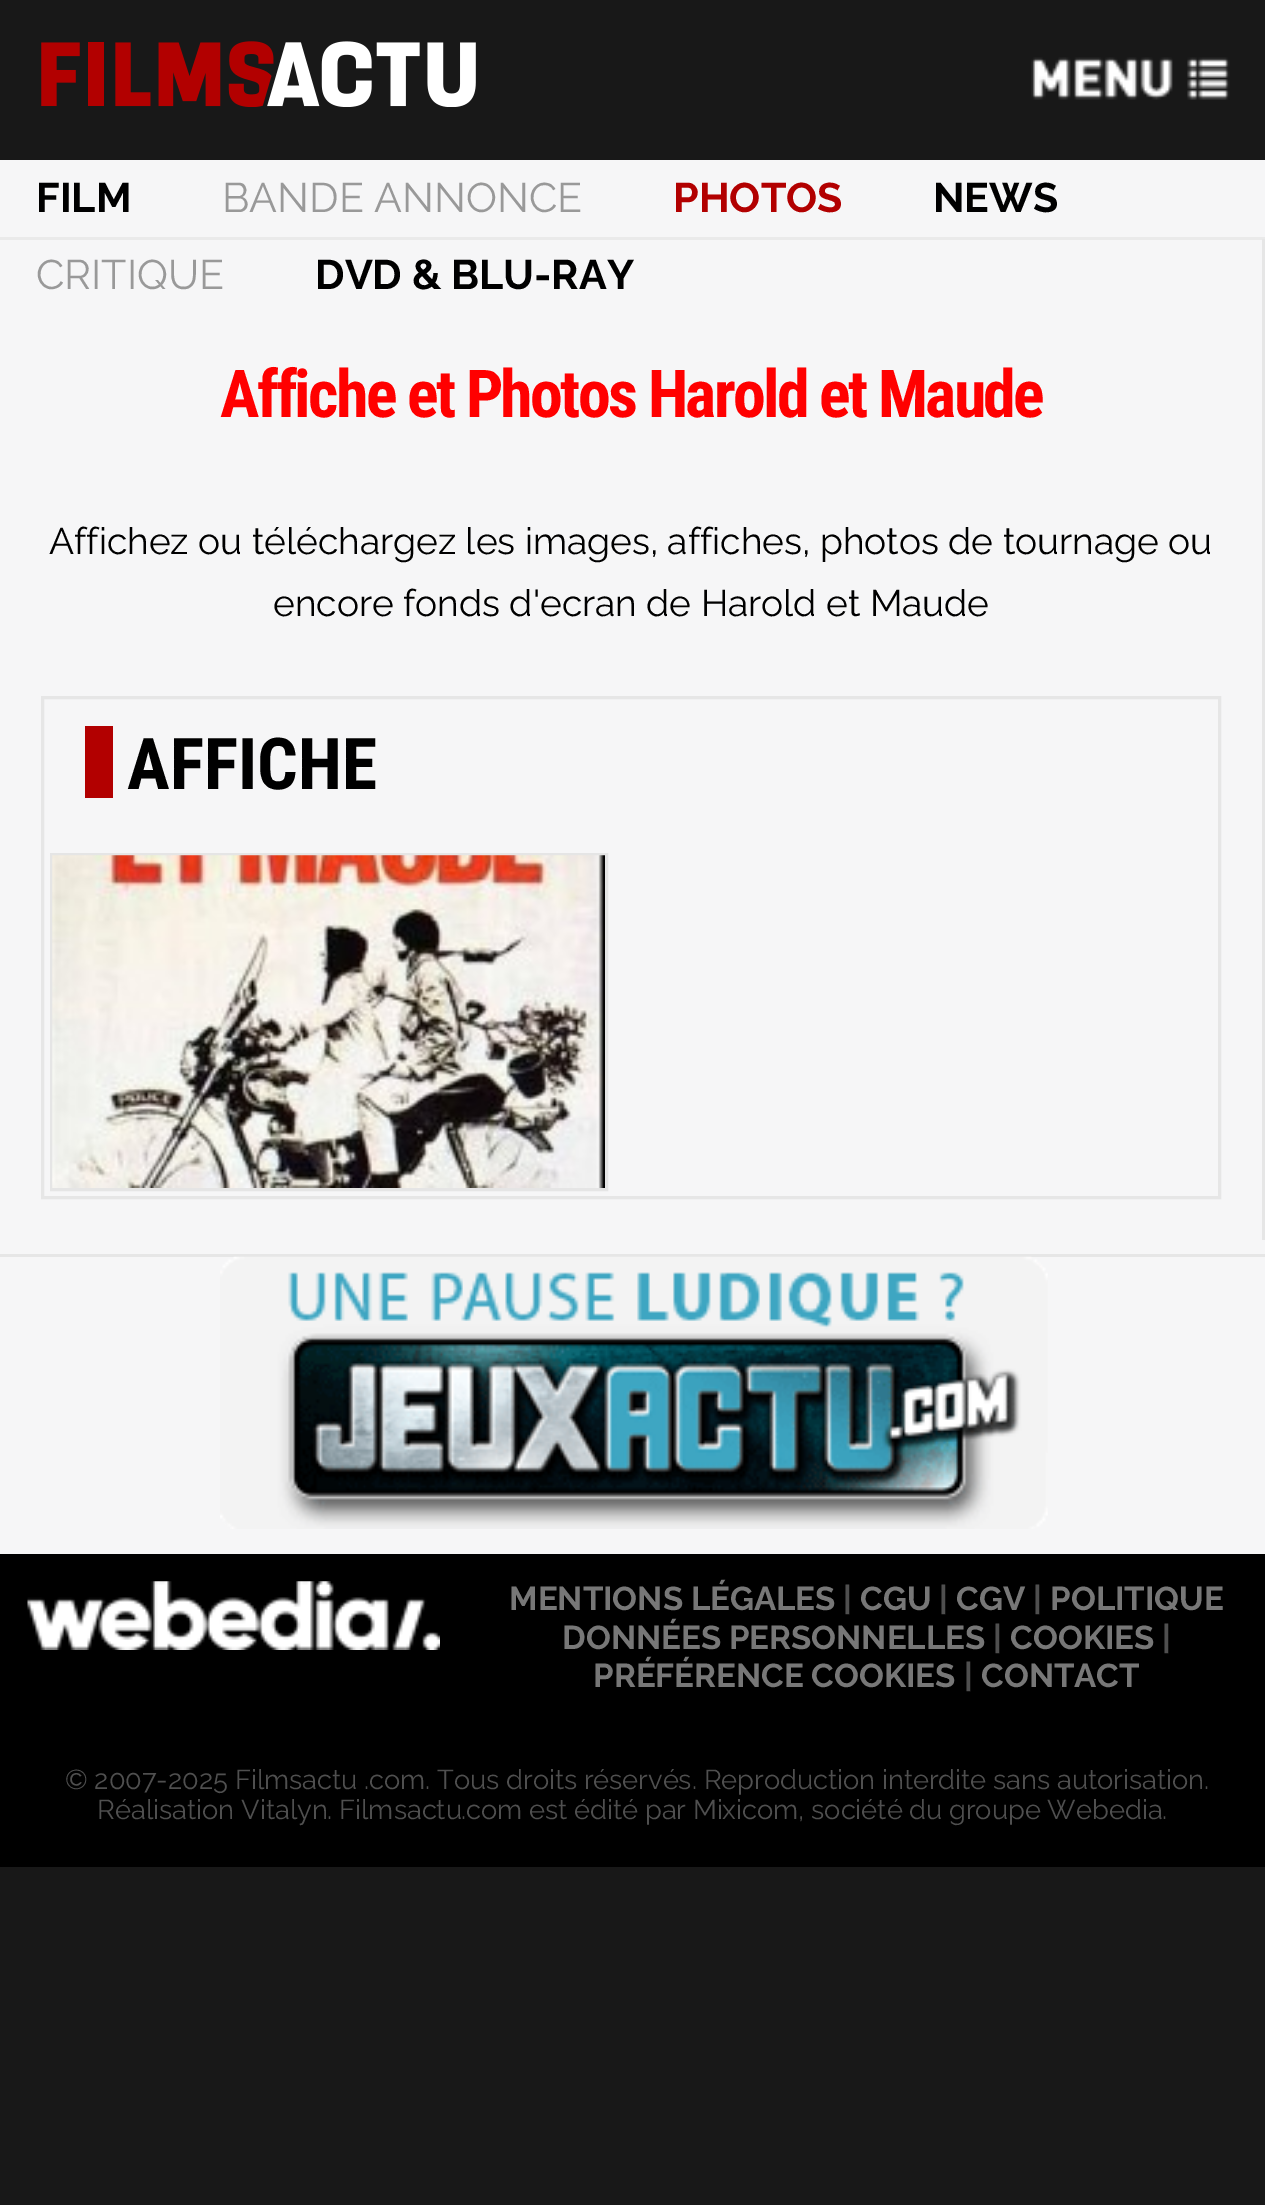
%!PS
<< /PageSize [1265 2205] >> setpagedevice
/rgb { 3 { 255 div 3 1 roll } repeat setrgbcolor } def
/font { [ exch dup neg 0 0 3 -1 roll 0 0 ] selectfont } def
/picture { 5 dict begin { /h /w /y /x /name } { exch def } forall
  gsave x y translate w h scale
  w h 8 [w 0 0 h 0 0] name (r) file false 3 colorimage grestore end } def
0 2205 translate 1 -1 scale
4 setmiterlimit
24 24 24 rgb
0 0 1265 2205 rectfill
(img/1.rgb) 41 41 435 66 picture
(img/2.rgb) 1031 57 199 43 picture
[
  [0 160 1265 1394 246 246 247]
  [0 237 1265 3 234 234 234]
  [1262 239 3 1001 230 230 230]
] { aload pop rgb rectfill } forall
3 setlinewidth
42.5 697.5 1177 500 rectstroke
178 0 0 rgb
85 726 28 72 rectfill
229 229 229 rgb
51.5 854.5 555 335 rectstroke
(img/3.rgb) 52 855 553 333 picture
230 230 230 rgb
0 1254 1265 3 rectfill
(img/4.rgb) 220 1256 828 273 picture
0 0 0 rgb
0 1554 1265 313 rectfill
(img/5.rgb) 27 1581 413 69 picture
/Raleway-Bold 41.25 font
36 212 moveto (FILM) show
/Raleway-Regular 41.25 font
153 153 153 rgb
222 212 moveto (BANDE ANNONCE) show
/Raleway-Bold 41.25 font
178 0 0 rgb
673 212 moveto (PHOTOS) show
0 0 0 rgb
933 212 moveto (NEWS) show
/Raleway-Regular 41.25 font
153 153 153 rgb
36 289 moveto (CRITIQUE) show
/Raleway-Bold 41.25 font
0 0 0 rgb
315 289 moveto (DVD & BLU-RAY) show
/RobotoCondensed-Bold 66 font
255 0 0 rgb
220 417 moveto -2.75 0 (Affiche et Photos Harold et Maude) ashow
/Raleway-Regular 37.1 font
0 0 0 rgb
49 554 moveto (Affichez ou téléchargez les images, affiches, photos de tournage ou) show
273 616 moveto (encore fonds d'ecran de Harold et Maude) show
/RobotoCondensed-Bold 71.5 font
127 789 moveto (AFFICHE) show
/Raleway-Bold 33 font
119 119 119 rgb
509 1610 moveto (MENTIONS LÉGALES) show
79 79 79 rgb
843 1610 moveto (|) show
119 119 119 rgb
860 1610 moveto (CGU) show
79 79 79 rgb
939 1610 moveto (|) show
119 119 119 rgb
956 1610 moveto (CGV) show
79 79 79 rgb
1033 1610 moveto (|) show
119 119 119 rgb
1050 1610 moveto (POLITIQUE) show
562 1649 moveto (DONNÉES PERSONNELLES) show
79 79 79 rgb
993 1649 moveto (|) show
119 119 119 rgb
1010 1649 moveto (COOKIES) show
79 79 79 rgb
1162 1649 moveto (|) show
119 119 119 rgb
593 1687 moveto (PRÉFÉRENCE COOKIES) show
79 79 79 rgb
964 1687 moveto (|) show
119 119 119 rgb
981 1687 moveto (CONTACT) show
/Raleway-Regular 27.25 font
79 79 79 rgb
65 1789 moveto -0.25 0 32 (© 2007-2025 Filmsactu .com. Tous droits réservés. Reproduction interdite sans autorisation.) widthshow
97 1819 moveto (Réalisation Vitalyn) show
327 1819 moveto (. Filmsactu) show
461 1819 moveto -0.25 0 32 (.com est édité par Mixicom, société du groupe Webedia.) widthshow
showpage
